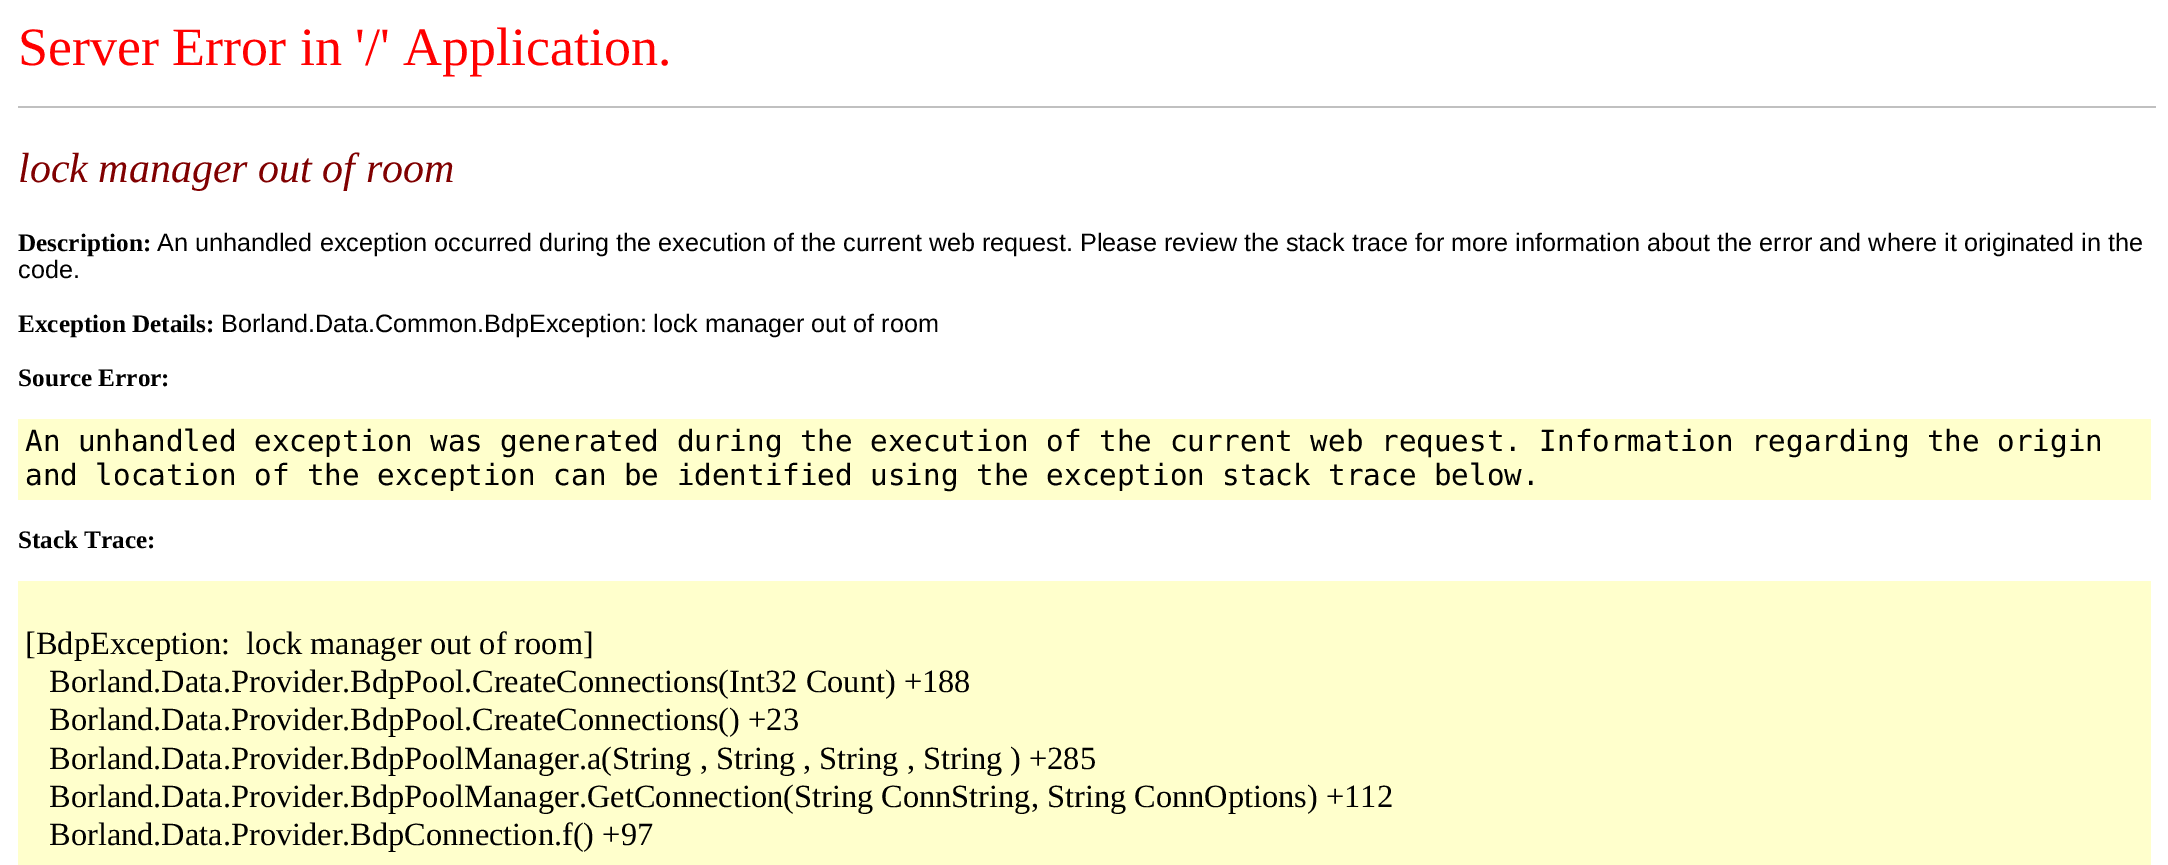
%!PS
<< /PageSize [2168 865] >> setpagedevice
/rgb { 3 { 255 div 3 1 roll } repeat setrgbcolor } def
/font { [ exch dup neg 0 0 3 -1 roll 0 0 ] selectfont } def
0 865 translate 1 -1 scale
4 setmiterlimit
255 255 255 rgb
0 0 2168 865 rectfill
[
  [18 106 2138 2 192 192 192]
  [18 419 2133 81 255 255 204]
  [18 581 2133 284 255 255 204]
] { aload pop rgb rectfill } forall
/LiberationSerif-Regular 54 font
255 0 0 rgb
18 65 moveto (Server Error in '/' Application.) show
/LiberationSerif-Italic 42 font
128 0 0 rgb
18 182 moveto (lock manager out of room) show
/LiberationSerif-Bold 25.2 font
0 0 0 rgb
18 251 moveto (Description:) show
/LiberationSans-Regular 25.2 font
157 251 moveto (An unhandled exception occurred during the execution of the current web request. Please review the stack trace for more information about the error and where it originated in the) show
18 278 moveto (code.) show
/LiberationSerif-Bold 25.2 font
18 332 moveto (Exception Details:) show
/LiberationSans-Regular 25.2 font
221 332 moveto (Borland.Data.Common.BdpException:) show
653 332 moveto (lock manager out of room) show
/LiberationSerif-Bold 25.2 font
18 386 moveto (Source Error:) show
/DejaVuSansMono-Regular 29.25 font
25 451 moveto (An unhandled exception was generated during the execution of the current web request. Information regarding the origin) show
25 485 moveto (and location of the exception can be identified using the exception stack trace below.) show
/LiberationSerif-Bold 25.2 font
18 548 moveto (Stack Trace:) show
/LiberationSerif-Regular 32.4 font
[
  [([BdpException:  lock manager out of room]) 25 654]
  [(Borland.Data.Provider.BdpPool.CreateConnections\(Int32 Count\) +188) 49 692]
  [(Borland.Data.Provider.BdpPool.CreateConnections\(\) +23) 49 730]
  [(Borland.Data.Provider.BdpPoolManager.a\(String , String , String , String \) +285) 49 769]
  [(Borland.Data.Provider.BdpPoolManager.GetConnection\(String ConnString, String ConnOptions\) +112) 49 807]
  [(Borland.Data.Provider.BdpConnection.f\(\) +97) 49 845]
] { aload pop moveto show } forall
showpage
